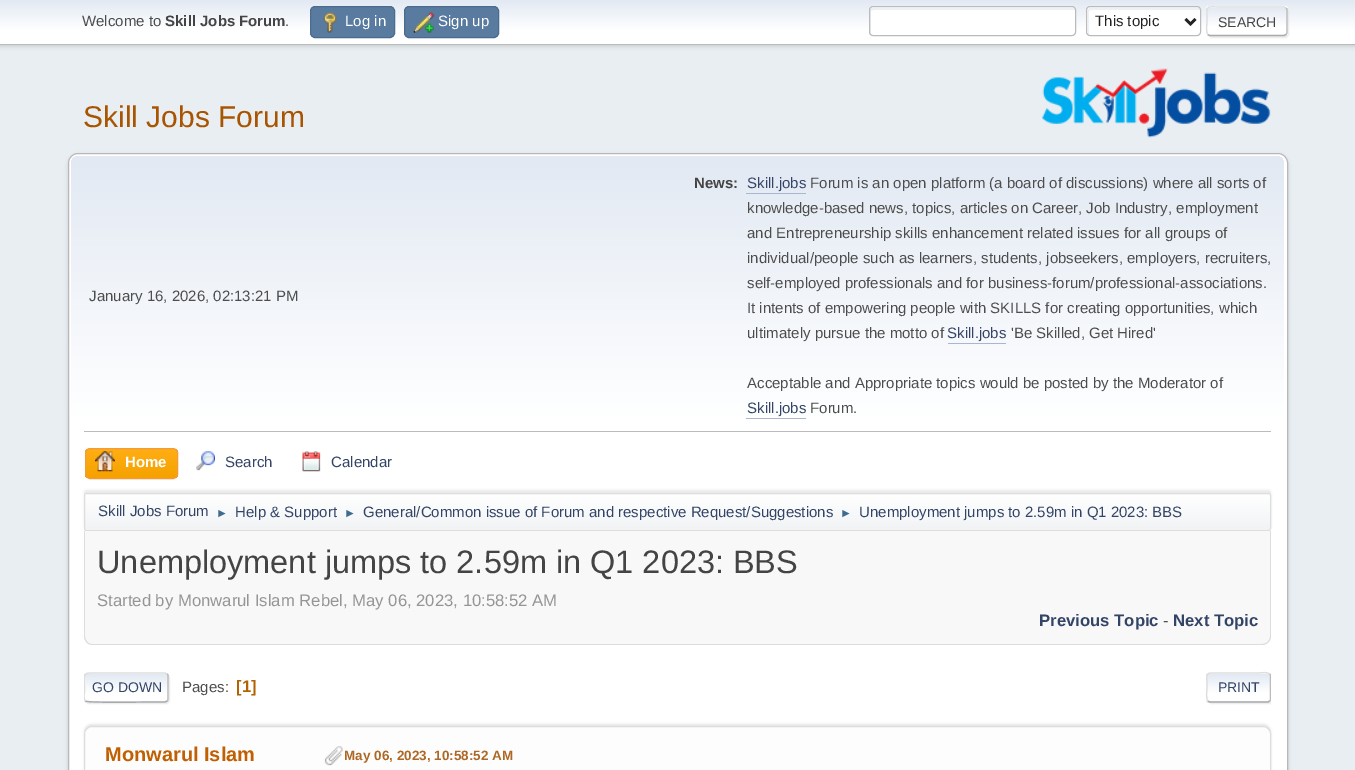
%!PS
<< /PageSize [1355 770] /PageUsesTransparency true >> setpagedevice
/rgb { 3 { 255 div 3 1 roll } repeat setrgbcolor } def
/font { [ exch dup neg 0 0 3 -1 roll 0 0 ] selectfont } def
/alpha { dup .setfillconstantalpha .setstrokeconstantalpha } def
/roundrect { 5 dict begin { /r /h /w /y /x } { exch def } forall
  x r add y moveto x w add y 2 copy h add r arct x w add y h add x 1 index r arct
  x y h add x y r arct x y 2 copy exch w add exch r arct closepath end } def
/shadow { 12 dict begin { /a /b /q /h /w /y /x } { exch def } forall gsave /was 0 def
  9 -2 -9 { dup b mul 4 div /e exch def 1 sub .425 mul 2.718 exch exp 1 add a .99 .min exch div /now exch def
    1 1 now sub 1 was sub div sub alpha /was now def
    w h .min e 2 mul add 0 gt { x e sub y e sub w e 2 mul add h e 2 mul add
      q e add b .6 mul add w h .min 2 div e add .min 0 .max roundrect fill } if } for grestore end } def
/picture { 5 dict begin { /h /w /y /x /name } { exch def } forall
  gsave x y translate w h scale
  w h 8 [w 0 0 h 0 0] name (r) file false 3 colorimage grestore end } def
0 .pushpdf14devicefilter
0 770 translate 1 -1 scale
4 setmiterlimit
233 238 242 rgb
0 0 1355 770 rectfill
0 0 0 rgb
0 1 1355 45 0 2.5 0.16 shadow
gsave 0 0 moveto 1355 0 lineto 1355 44 lineto 0 44 lineto closepath clip newpath
<< /ShadingType 2 /ColorSpace /DeviceRGB /Coords [678 0 678 44] /Extend [true true] /Function << /FunctionType 3 /Domain [0 1] /Functions [<< /FunctionType 2 /Domain [0 1] /C0 [0.886 0.914 0.953] /C1 [1 1 1] /N 1 >> << /FunctionType 2 /Domain [0 1] /C0 [1 1 1] /C1 [1 1 1] /N 1 >>] /Bounds [0.7] /Encode [0 1 0 1] >> >> shfill grestore
187 187 187 rgb
0 44 1355 1 rectfill
89 123 159 rgb
310.5 6.5 84 31 4.5 roundrect gsave fill grestore
74 107 140 rgb
stroke
(img/1.rgb) 323 12 14 21 picture
89 123 159 rgb
404.5 6.5 94 31 4.5 roundrect gsave fill grestore
74 107 140 rgb
stroke
(img/2.rgb) 413 12 21 21 picture
255 255 255 rgb
869 6 207 30 4 roundrect fill
236 241 248 rgb
874 10 moveto 1075 10 lineto 1075 9 1074 8 1072 8 curveto 872 8 lineto 871 8 870 9 870 10 curveto 870 32 lineto 870 33 870 34 871 35 curveto 871 12 lineto 871 11 872 10 874 10 curveto closepath fill
187 187 187 rgb
869.5 6.5 206 29 3.5 roundrect stroke
255 255 255 rgb
1086 6 115 30 4 roundrect fill
236 241 248 rgb
1091 10 moveto 1200 10 lineto 1200 9 1199 8 1198 8 curveto 1090 8 lineto 1089 8 1088 9 1088 10 curveto 1088 32 lineto 1088 33 1088 34 1089 35 curveto 1089 12 lineto 1089 11 1090 10 1091 10 curveto closepath fill
187 187 187 rgb
1086.5 6.5 114 29 3.5 roundrect stroke
34 34 34 rgb
2.5 setlinewidth
1185.5 19 moveto 1190.5 24 lineto 1195.5 19 lineto stroke
221 221 221 rgb
1208 8 81 30 4 0.5 0.57 shadow
gsave
1206 6 82 30 4 roundrect clip newpath
gsave 1206 6 moveto 1288 6 lineto 1288 8 lineto 1206 8 lineto closepath clip newpath
<< /ShadingType 2 /ColorSpace /DeviceRGB /Coords [1247 -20 1247 7.5] /Extend [true true] /Function << /FunctionType 3 /Domain [0 1] /Functions [<< /FunctionType 2 /Domain [0 1] /C0 [0.886 0.914 0.953] /C1 [1 1 1] /N 1 >> << /FunctionType 2 /Domain [0 1] /C0 [1 1 1] /C1 [1 1 1] /N 1 >>] /Bounds [0.7] /Encode [0 1 0 1] >> >> shfill grestore
gsave 1206 8 moveto 1288 8 lineto 1288 35 lineto 1206 35 lineto closepath clip newpath
<< /ShadingType 2 /ColorSpace /DeviceRGB /Coords [1247 7.5 1247 35] /Extend [true true] /Function << /FunctionType 3 /Domain [0 1] /Functions [<< /FunctionType 2 /Domain [0 1] /C0 [0.886 0.914 0.953] /C1 [1 1 1] /N 1 >> << /FunctionType 2 /Domain [0 1] /C0 [1 1 1] /C1 [1 1 1] /N 1 >>] /Bounds [0.7] /Encode [0 1 0 1] >> >> shfill grestore
gsave 1206 35 moveto 1288 35 lineto 1288 36 lineto 1206 36 lineto closepath clip newpath
<< /ShadingType 2 /ColorSpace /DeviceRGB /Coords [1247 35 1247 63] /Extend [true true] /Function << /FunctionType 3 /Domain [0 1] /Functions [<< /FunctionType 2 /Domain [0 1] /C0 [0.886 0.914 0.953] /C1 [1 1 1] /N 1 >> << /FunctionType 2 /Domain [0 1] /C0 [1 1 1] /C1 [1 1 1] /N 1 >>] /Bounds [0.7] /Encode [0 1 0 1] >> >> shfill grestore
grestore
187 187 187 rgb
1.2 setlinewidth
1286 8 moveto 1286.5 8.5 1287 9 1287 10 curveto 1287 32.5 lineto 1287 33.5 1286.5 34 1286 34.5 curveto stroke
170 170 170 rgb
1286 34.5 moveto 1284 35.5 lineto 1209.5 35.5 lineto 1208 34.5 lineto stroke
221 221 221 rgb
1208 34.5 moveto 1205.5 32.5 1207 24 1207 21 curveto 1207 4 1204.5 7 1222.5 7 curveto 1284 7 lineto 1286 8 lineto stroke
(img/3.rgb) 1042 68 229 70 picture
0 0 0 rgb
68 155 1220 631 10 2 0.14 shadow
255 255 255 rgb
68.5 153.5 1219 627 9.5 roundrect gsave fill grestore
184 184 184 rgb
1 setlinewidth
stroke
gsave 79 156 moveto 1276 156 lineto 1280.5 156 1284 159.5 1284 164 curveto 1284 534 lineto 71 534 lineto 71 164 lineto 71 159.5 74.5 156 79 156 curveto closepath clip newpath
<< /ShadingType 2 /ColorSpace /DeviceRGB /Coords [678 156 678 534] /Extend [true true] /Function << /FunctionType 3 /Domain [0 1] /Functions [<< /FunctionType 2 /Domain [0 1] /C0 [0.886 0.914 0.953] /C1 [1 1 1] /N 1 >> << /FunctionType 2 /Domain [0 1] /C0 [1 1 1] /C1 [1 1 1] /N 1 >>] /Bounds [0.7] /Encode [0 1 0 1] >> >> shfill grestore
[
  [84 431 1187 1 187 187 187]
  [746 193 60 1 168 182 207]
  [948 343 58 1 168 182 207]
  [746 418 60 1 168 182 207]
] { aload pop rgb rectfill } forall
gsave
85 448 93 31 5 roundrect clip newpath
gsave 85 449 moveto 178 449 lineto 178 478 lineto 85 478 lineto closepath clip newpath
<< /ShadingType 2 /ColorSpace /DeviceRGB /Coords [131 449 131 478] /Extend [true true] /Function << /FunctionType 2 /Domain [0 1] /C0 [1 0.682 0.078] /C1 [0.961 0.631 0] /N 1 >> >> shfill grestore
grestore
244 154 58 rgb
85.5 448.5 92 30 4.5 roundrect stroke
(img/4.rgb) 95 451 20 21 picture
(img/5.rgb) 196 451 19 20 picture
(img/6.rgb) 302 451 19 21 picture
0 0 0 rgb
84 490 1187 39 2.5 1 0.08 shadow
gsave
84 493 1187 38 2.5 roundrect clip newpath
gsave 84 494 moveto 1271 494 lineto 1271 530 lineto 84 530 lineto closepath clip newpath
<< /ShadingType 2 /ColorSpace /DeviceRGB /Coords [678 494 678 530] /Extend [true true] /Function << /FunctionType 3 /Domain [0 1] /Functions [<< /FunctionType 2 /Domain [0 1] /C0 [1 1 1] /C1 [0.945 0.953 0.961] /N 1 >> << /FunctionType 2 /Domain [0 1] /C0 [0.945 0.953 0.961] /C1 [0.945 0.953 0.961] /N 1 >>] /Bounds [0.95] /Encode [0 1 0 1] >> >> shfill grestore
grestore
221 221 221 rgb
84.5 493.5 1186 37 2 roundrect stroke
248 248 248 rgb
84 531 moveto 1271 531 lineto 1271 636 lineto 1271 641 1267 645 1262 645 curveto 93 645 lineto 88 645 84 641 84 636 curveto closepath fill
221 221 221 rgb
84 531 moveto 1271 531 lineto 1271 636 lineto 1271 641 1267 645 1262 645 curveto 92 645 lineto 88 645 84 641 84 636 curveto closepath 85 531 moveto 1270 531 lineto 1270 636 lineto 1270 640 1267 644 1262 644 curveto 92 644 lineto 88 644 85 640 85 636 curveto closepath eofill
85 674 85 30 4 0.5 0.57 shadow
255 255 255 rgb
84 673 85 30 4 roundrect fill
gsave
84 673 85 30 4 roundrect clip newpath
gsave 84 674 moveto 169 674 lineto 169 701 lineto 84 701 lineto closepath clip newpath
<< /ShadingType 2 /ColorSpace /DeviceRGB /Coords [126 674 126 701] /Extend [true true] /Function << /FunctionType 3 /Domain [0 1] /Functions [<< /FunctionType 2 /Domain [0 1] /C0 [0.886 0.914 0.953] /C1 [1 1 1] /N 1 >> << /FunctionType 2 /Domain [0 1] /C0 [1 1 1] /C1 [1 1 1] /N 1 >>] /Bounds [0.7] /Encode [0 1 0 1] >> >> shfill grestore
gsave 84 701 moveto 169 701 lineto 169 703 lineto 84 703 lineto closepath clip newpath
<< /ShadingType 2 /ColorSpace /DeviceRGB /Coords [126 701 126 729] /Extend [true true] /Function << /FunctionType 3 /Domain [0 1] /Functions [<< /FunctionType 2 /Domain [0 1] /C0 [0.886 0.914 0.953] /C1 [1 1 1] /N 1 >> << /FunctionType 2 /Domain [0 1] /C0 [1 1 1] /C1 [1 1 1] /N 1 >>] /Bounds [0.7] /Encode [0 1 0 1] >> >> shfill grestore
grestore
187 187 187 rgb
1.2 setlinewidth
167 674 moveto 168 674.5 168 675.5 168 676 curveto 168 699 lineto 168 699.5 168 700.5 167 701 curveto stroke
170 170 170 rgb
167 701 moveto 165 702 lineto 152 702 lineto 144.5 702 87.5 703 85.5 701 curveto stroke
gsave
84 664 1187 47 rectclip
221 221 221 rgb
85.5 701 moveto 83 698.5 84.5 694 84.5 691 curveto 84.5 671 80.5 673 100.5 673 curveto 165 673 lineto 167 674 lineto stroke
grestore
gsave
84 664 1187 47 rectclip
221 221 221 rgb
1208 674 65 30 4 0.5 0.57 shadow
grestore
255 255 255 rgb
1206 673 65 30 4 roundrect fill
gsave
1206 673 65 30 4 roundrect clip newpath
gsave 1206 674 moveto 1271 674 lineto 1271 701 lineto 1206 701 lineto closepath clip newpath
<< /ShadingType 2 /ColorSpace /DeviceRGB /Coords [1239 674 1239 701] /Extend [true true] /Function << /FunctionType 3 /Domain [0 1] /Functions [<< /FunctionType 2 /Domain [0 1] /C0 [0.886 0.914 0.953] /C1 [1 1 1] /N 1 >> << /FunctionType 2 /Domain [0 1] /C0 [1 1 1] /C1 [1 1 1] /N 1 >>] /Bounds [0.7] /Encode [0 1 0 1] >> >> shfill grestore
gsave 1206 701 moveto 1271 701 lineto 1271 703 lineto 1206 703 lineto closepath clip newpath
<< /ShadingType 2 /ColorSpace /DeviceRGB /Coords [1239 701 1239 729] /Extend [true true] /Function << /FunctionType 3 /Domain [0 1] /Functions [<< /FunctionType 2 /Domain [0 1] /C0 [0.886 0.914 0.953] /C1 [1 1 1] /N 1 >> << /FunctionType 2 /Domain [0 1] /C0 [1 1 1] /C1 [1 1 1] /N 1 >>] /Bounds [0.7] /Encode [0 1 0 1] >> >> shfill grestore
grestore
gsave
84 664 1187 47 rectclip
187 187 187 rgb
1269.5 674 moveto 1270.5 674.5 1270.5 675.5 1270.5 676 curveto 1270.5 699 lineto 1270.5 699.5 1270.5 700.5 1269.5 701 curveto stroke
grestore
170 170 170 rgb
1269.5 701 moveto 1268 702 lineto 1209.5 702 lineto 1208 701 lineto stroke
221 221 221 rgb
1208 701 moveto 1205.5 699 1207 690 1207 687.5 curveto 1207 671.5 1204 673 1219.5 673 curveto 1258 673 lineto 1262 673 1266.5 671.5 1269.5 674 curveto stroke
0 0 0 rgb
84 724 1187 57 8 1 0.1 shadow
253 253 253 rgb
84.5 726.5 1186 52 7.5 roundrect gsave fill grestore
221 221 221 rgb
1 setlinewidth
stroke
(img/7.rgb) 324 746 19 20 picture
/LiberationSans-Regular 15 font
77 77 77 rgb
82 26 moveto (Welcome to) show
/LiberationSans-Bold 15 font
68 68 68 rgb
165 26 moveto (Skill Jobs Forum) show
/LiberationSans-Regular 15 font
77 77 77 rgb
285 26 moveto (.) show
255 255 255 rgb
345 26 moveto (Log in) show
438 26 moveto (Sign up) show
34 34 34 rgb
1095 26 moveto (This topic) show
/LiberationSans-Regular 14 font
68 68 68 rgb
1218 27 moveto (SEARCH) show
/LiberationSans-Regular 30 font
168 84 0 rgb
83 127 moveto (Skill Jobs Forum) show
/LiberationSans-Regular 15 font
77 77 77 rgb
89 301 moveto (January 16, 2026, 02:13:21 PM) show
/LiberationSans-Bold 15 font
68 68 68 rgb
694 188 moveto (News:) show
/LiberationSans-Regular 15 font
51 68 102 rgb
747 188 moveto (Skill.jobs) show
77 77 77 rgb
[
  [(Forum is an open platform \(a board of discussions\) where all sorts of) 810 188]
  [(knowledge-based news, topics, articles on Career, Job Industry, employment) 747 213]
  [(and Entrepreneurship skills enhancement related issues for all groups of) 747 238]
  [(individual/people such as learners, students, jobseekers, employers, recruiters,) 747 263]
  [(self-employed professionals and for business-forum/professional-associations.) 747 288]
  [(It intents of empowering people with SKILLS for creating opportunities, which) 747 313]
  [(ultimately pursue the motto of) 747 338]
] { aload pop moveto show } forall
51 68 102 rgb
947 338 moveto (Skill.jobs) show
77 77 77 rgb
1011 338 moveto ('Be Skilled, Get Hired') show
747 388 moveto (Acceptable and Appropriate topics would be posted by the Moderator of) show
51 68 102 rgb
747 413 moveto (Skill.jobs) show
77 77 77 rgb
810 413 moveto (Forum.) show
/LiberationSans-Bold 15 font
255 255 255 rgb
125 467 moveto (Home) show
/LiberationSans-Regular 15 font
51 68 102 rgb
[
  [(Search) 225 467]
  [(Calendar) 331 467]
  [(Skill Jobs Forum) 98 516]
] { aload pop moveto show } forall
/LiberationSans-Regular 12 font
63 107 140 rgb
216 517 moveto (►) show
/LiberationSans-Regular 15 font
51 68 102 rgb
235 517 moveto (Help & Support) show
/LiberationSans-Regular 12 font
63 107 140 rgb
344 517 moveto (►) show
/LiberationSans-Regular 15 font
51 68 102 rgb
363 517 moveto (General/Common issue of Forum and respective Request/Suggestions) show
/LiberationSans-Regular 12 font
63 107 140 rgb
840 517 moveto (►) show
/LiberationSans-Regular 15 font
51 68 102 rgb
859 517 moveto (Unemployment jumps to 2.59m in Q1 2023: BBS) show
/LiberationSans-Regular 32.5 font
68 68 68 rgb
97 573 moveto (Unemployment jumps to 2.59m in Q1 2023: BBS) show
/LiberationSans-Regular 16.7 font
149 149 149 rgb
97 606 moveto (Started by Monwarul Islam Rebel, May 06, 2023, 10:58:52 AM) show
/LiberationSans-Bold 16.7 font
51 68 102 rgb
1039 626 moveto (Previous Topic) show
/LiberationSans-Regular 16.7 font
77 77 77 rgb
1163 626 moveto (-) show
/LiberationSans-Bold 16.7 font
51 68 102 rgb
1173 626 moveto (Next Topic) show
/LiberationSans-Regular 14 font
92 692 moveto (GO DOWN) show
/LiberationSans-Regular 15 font
77 77 77 rgb
182 692 moveto (Pages:) show
/LiberationSans-Bold 16.7 font
180 97 0 rgb
236 692 moveto ([1]) show
/LiberationSans-Regular 14 font
51 68 102 rgb
1218 692 moveto (PRINT) show
/LiberationSans-Bold 20 font
192 96 2 rgb
105 761 moveto (Monwarul Islam) show
/LiberationSans-Bold 13.5 font
173 104 37 rgb
344 760 moveto (May 06, 2023, 10:58:52 AM) show
.poppdf14devicefilter showpage
